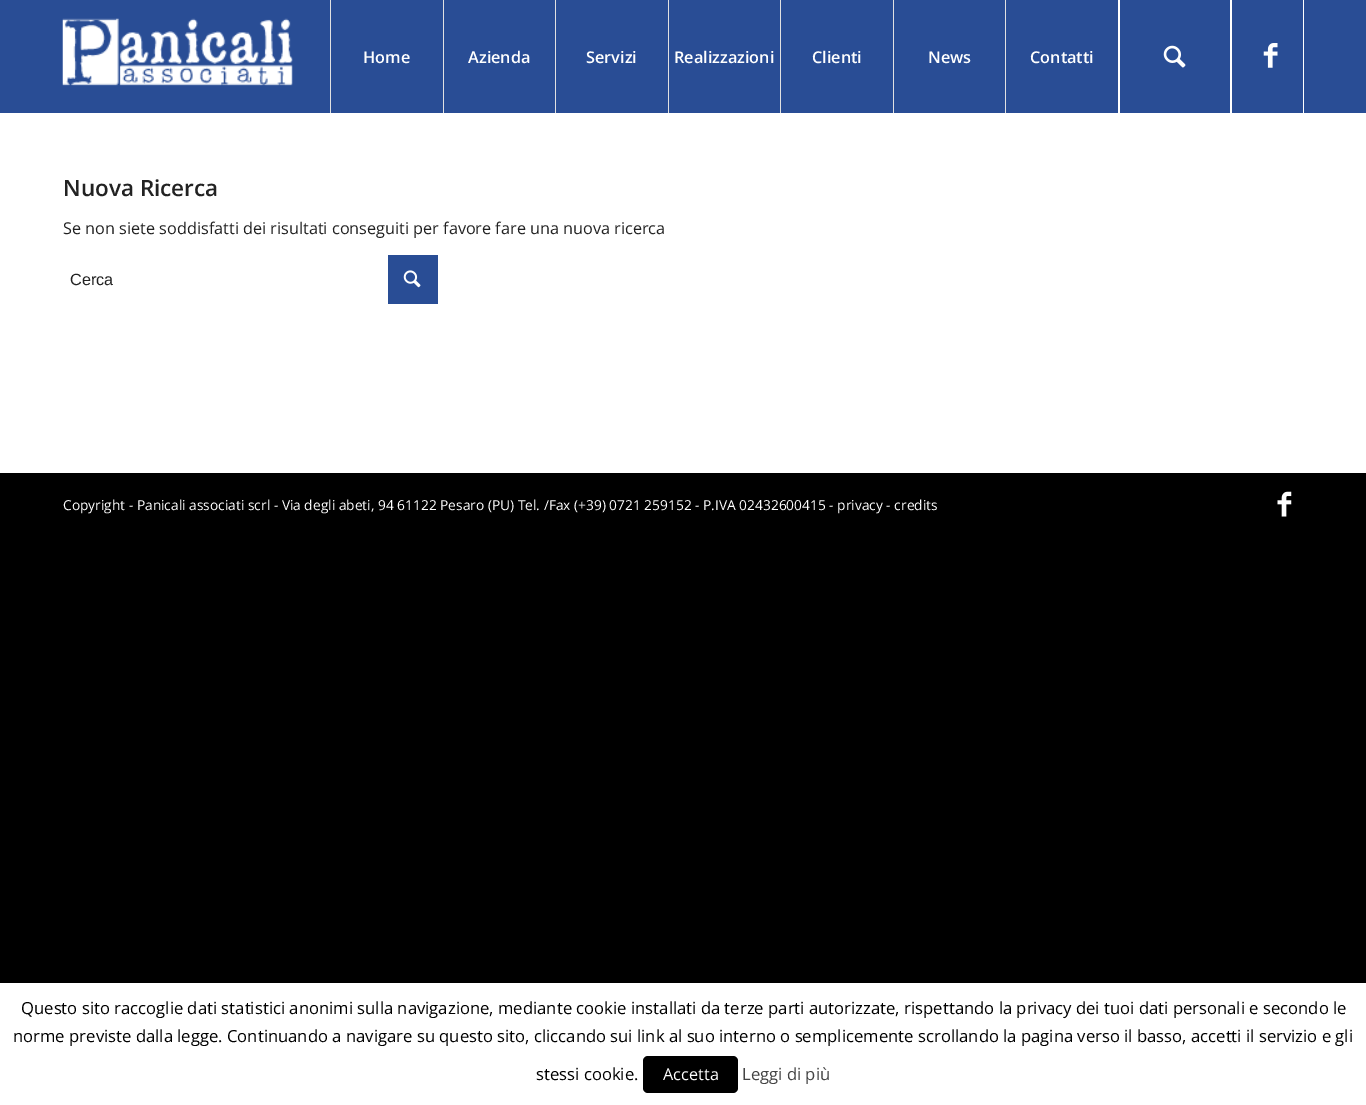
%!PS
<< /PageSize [1366 1105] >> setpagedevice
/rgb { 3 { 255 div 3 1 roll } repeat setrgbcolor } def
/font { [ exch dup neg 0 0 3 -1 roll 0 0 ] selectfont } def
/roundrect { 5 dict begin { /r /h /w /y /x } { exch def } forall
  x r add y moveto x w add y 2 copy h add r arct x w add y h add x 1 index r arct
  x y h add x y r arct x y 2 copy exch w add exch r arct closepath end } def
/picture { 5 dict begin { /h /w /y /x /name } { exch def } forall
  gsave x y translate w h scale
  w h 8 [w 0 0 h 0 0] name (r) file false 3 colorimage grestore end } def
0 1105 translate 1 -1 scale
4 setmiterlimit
0 0 0 rgb
0 0 1366 1105 rectfill
41 77 149 rgb
0 0 1366 113 rectfill
(img/1.rgb) 62 18 231 68 picture
[
  [1303 0 1 113 255 255 255]
  [330 0 1 113 225 225 225]
  [443 0 1 113 225 225 225]
  [555 0 1 113 225 225 225]
  [668 0 1 113 225 225 225]
  [780 0 1 113 225 225 225]
  [893 0 1 113 225 225 225]
  [1005 0 1 113 225 225 225]
  [1230 0 2 113 255 255 255]
  [1118 0 2 113 255 255 255]
] { aload pop rgb rectfill } forall
(img/2.rgb) 1163 45 23 23 picture
(img/3.rgb) 1263 43 15 25 picture
0 113 1366 360 rectfill
41 77 149 rgb
388 255 50 49 rectfill
(img/4.rgb) 403 270 18 18 picture
(img/5.rgb) 1277 491 15 26 picture
255 255 255 rgb
0 983 1366 122 rectfill
0 0 0 rgb
643 1056 95 37 5 roundrect fill
/OpenSans-SemiBold 16.25 font
255 255 255 rgb
[
  [(Home) 363 63]
  [(Azienda) 468 63]
  [(Servizi) 586 63]
  [(Realizzazioni) 674 63]
  [(Clienti) 812 63]
  [(News) 928 63]
  [(Contatti) 1030 63]
] { aload pop moveto show } forall
/OpenSans-SemiBold 22.5 font
34 34 34 rgb
63 196 moveto (Nuova Ricerca) show
/OpenSans-Regular 16.25 font
63 234 moveto (Se non siete soddisfatti dei risultati conseguiti per favore fare una nuova ricerca) show
/LiberationSans-Regular 16.25 font
70 285 moveto (Cerca) show
/OpenSans-Regular 13.75 font
255 255 255 rgb
63 510 moveto (Copyright - Panicali associati scrl - Via degli abeti, 94 61122 Pesaro \(PU\) Tel. /Fax \(+39\) 0721 259152 - P.IVA 02432600415 - privacy - credits) show
/OpenSans-Regular 16.67 font
0 0 0 rgb
[
  [(Questo sito raccoglie dati statistici anonimi sulla navigazione, mediante cookie installati da terze parti autorizzate, rispettando la privacy dei tuoi dati personali e secondo le) 21 1014]
  [(norme previste dalla legge. Continuando a navigare su questo sito, cliccando sui link al suo interno o semplicemente scrollando la pagina verso il basso, accetti il servizio e gli) 13 1042]
  [(stessi cookie.) 536 1080]
] { aload pop moveto show } forall
/OpenSans-Regular 16.25 font
255 255 255 rgb
663 1080 moveto (Accetta) show
/OpenSans-Regular 16.67 font
68 68 68 rgb
742 1080 moveto (Leggi di più) show
showpage
